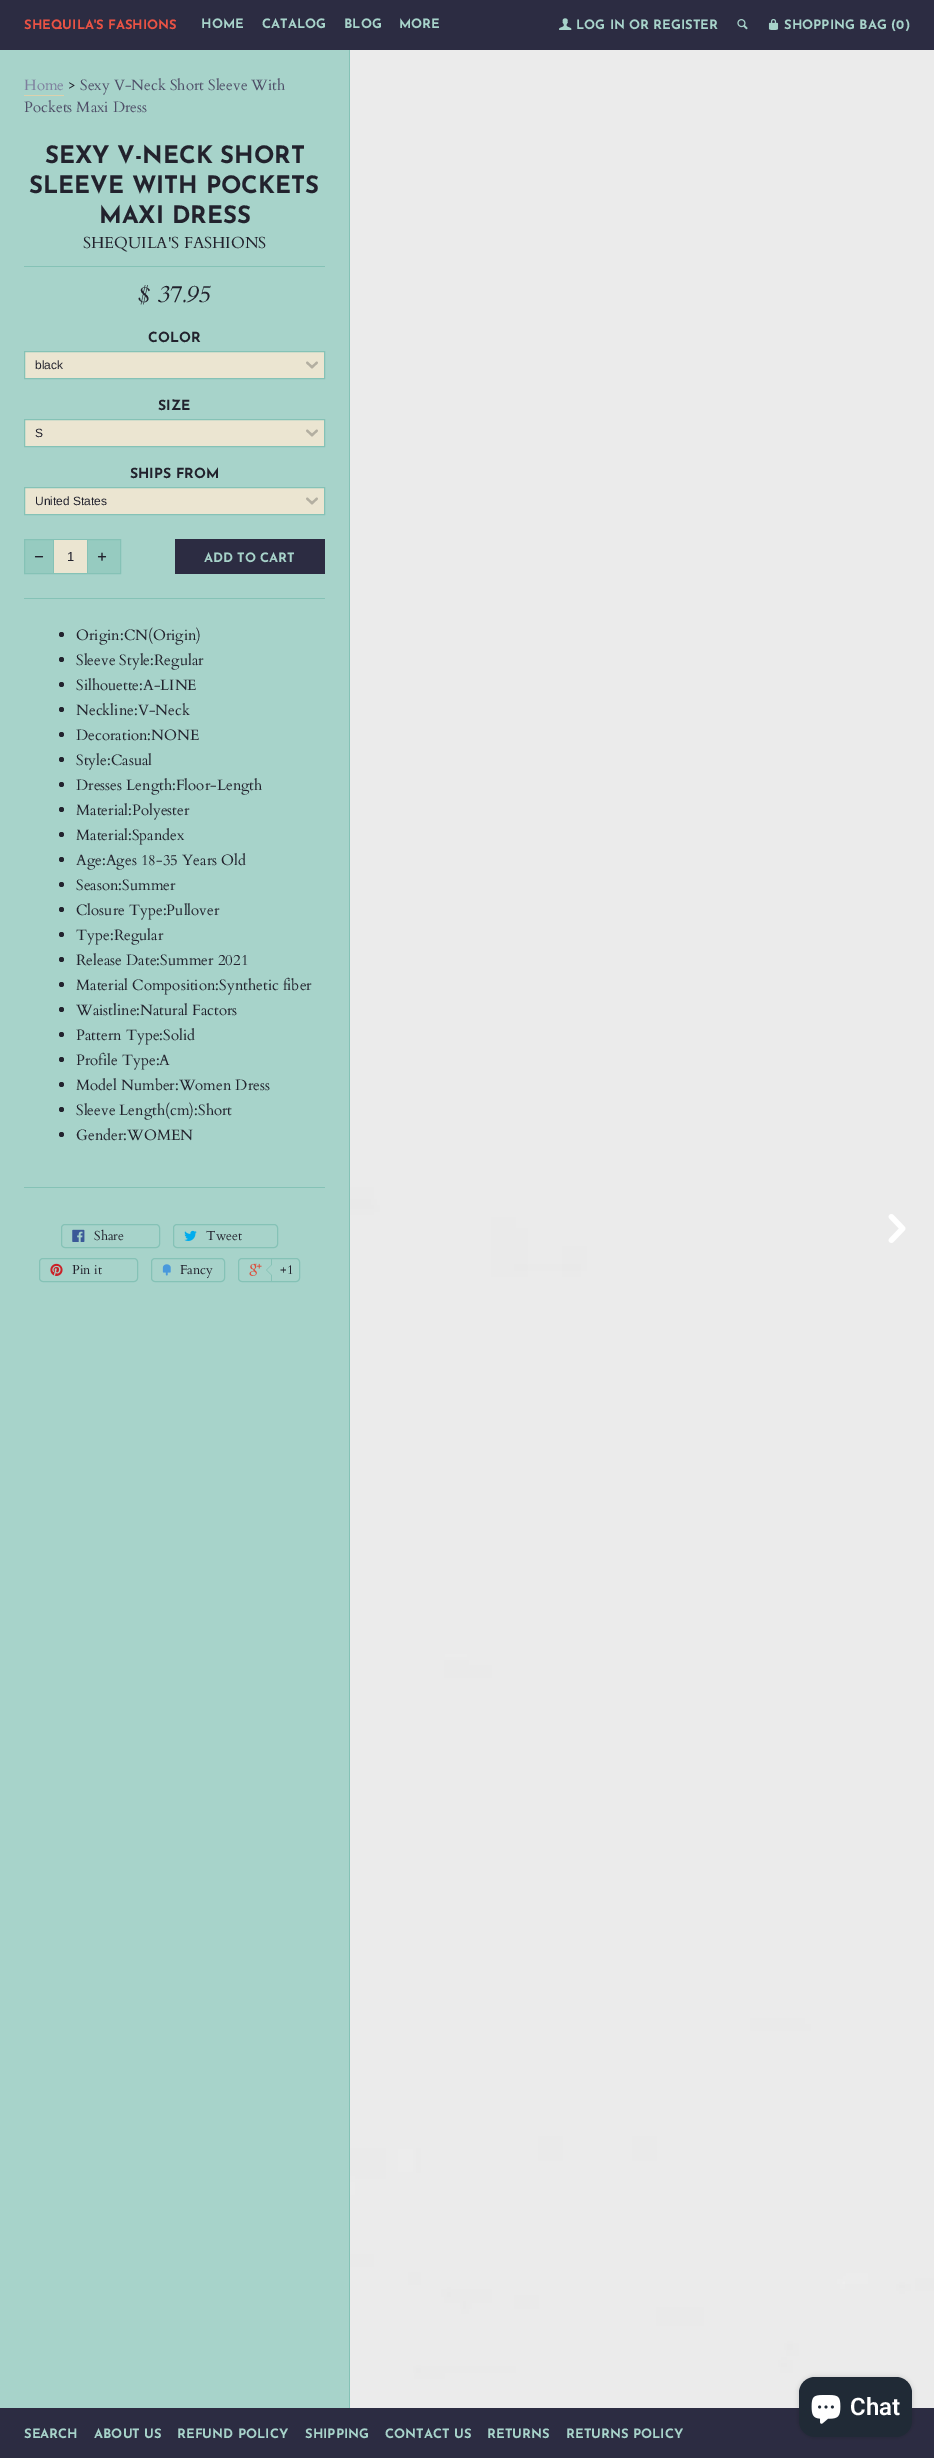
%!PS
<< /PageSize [934 2458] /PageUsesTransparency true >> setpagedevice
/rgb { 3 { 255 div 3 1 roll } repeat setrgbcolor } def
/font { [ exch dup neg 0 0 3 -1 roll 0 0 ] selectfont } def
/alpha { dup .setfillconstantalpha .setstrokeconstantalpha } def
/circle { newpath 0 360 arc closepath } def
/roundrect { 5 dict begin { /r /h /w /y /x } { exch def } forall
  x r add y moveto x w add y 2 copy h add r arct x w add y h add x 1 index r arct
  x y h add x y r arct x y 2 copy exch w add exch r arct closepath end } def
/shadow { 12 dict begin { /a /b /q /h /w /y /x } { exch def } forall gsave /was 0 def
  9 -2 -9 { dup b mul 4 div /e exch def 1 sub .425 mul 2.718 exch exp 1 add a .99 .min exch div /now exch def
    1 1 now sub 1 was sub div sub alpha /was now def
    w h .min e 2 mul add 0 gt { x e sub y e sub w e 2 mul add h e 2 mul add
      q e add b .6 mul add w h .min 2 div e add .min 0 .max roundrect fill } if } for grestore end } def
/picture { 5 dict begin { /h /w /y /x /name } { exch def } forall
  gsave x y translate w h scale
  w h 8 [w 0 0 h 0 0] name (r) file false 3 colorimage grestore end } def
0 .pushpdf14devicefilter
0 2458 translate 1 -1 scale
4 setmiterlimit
255 255 255 rgb
0 0 934 2458 rectfill
44 44 66 rgb
0 0 934 50 rectfill
(img/1.rgb) 559 18 13 12 picture
(img/2.rgb) 737 19 11 11 picture
(img/3.rgb) 768 19 11 11 picture
[
  [0 50 349 2358 167 211 202]
  [349 50 1 2358 133 194 182]
  [24 95 40 1 220 209 173]
  [24 266 301 1 133 194 182]
  [25 352 299 26 235 229 209]
] { aload pop rgb rectfill } forall
(img/4.rgb) 306 361 12 8 picture
133 194 182 rgb
24.5 351.5 300 27 rectstroke
235 229 209 rgb
25 420 299 26 rectfill
(img/4.rgb) 306 429 12 8 picture
133 194 182 rgb
24.5 419.5 300 27 rectstroke
235 229 209 rgb
25 488 299 26 rectfill
(img/4.rgb) 306 497 12 8 picture
133 194 182 rgb
24.5 487.5 300 27 rectstroke
150 203 192 rgb
24.5 539.5 moveto 120.5 539.5 lineto 120.5 573.5 lineto 24.5 573.5 lineto closepath gsave fill grestore
133 194 182 rgb
stroke
(img/5.rgb) 34 556 10 2 picture
[
  [54 540 33 33 235 229 209]
  [87 540 1 33 133 194 182]
  [53 540 1 33 133 194 182]
] { aload pop rgb rectfill } forall
(img/6.rgb) 97 552 10 9 picture
[
  [175 539 150 35 44 44 66]
  [24 598 301 1 133 194 182]
  [24 1187 301 1 133 194 182]
] { aload pop rgb rectfill } forall
34 34 45 rgb
61.5 634.5 2.5 circle fill
61.5 659.5 2.5 circle fill
61.5 684.5 2.5 circle fill
61.5 709.5 2.5 circle fill
61.5 734.5 2.5 circle fill
61.5 759.5 2.5 circle fill
61.5 784.5 2.5 circle fill
61.5 809.5 2.5 circle fill
61.5 834.5 2.5 circle fill
61.5 859.5 2.5 circle fill
61.5 884.5 2.5 circle fill
61.5 909.5 2.5 circle fill
61.5 934.5 2.5 circle fill
61.5 959.5 2.5 circle fill
61.5 984.5 2.5 circle fill
61.5 1009.5 2.5 circle fill
61.5 1034.5 2.5 circle fill
61.5 1059.5 2.5 circle fill
61.5 1084.5 2.5 circle fill
61.5 1109.5 2.5 circle fill
61.5 1134.5 2.5 circle fill
133 194 182 rgb
61.5 1224.5 98 23 3.5 roundrect stroke
(img/7.rgb) 72 1229 13 13 picture
173.5 1224.5 104 23 3.5 roundrect stroke
(img/8.rgb) 184 1230 13 11 picture
39.5 1258.5 98 23 3.5 roundrect stroke
(img/9.rgb) 50 1263 13 13 picture
151.5 1258.5 73 23 3.5 roundrect stroke
(img/10.rgb) 162 1264 9 12 picture
238.5 1258.5 61 23 3.5 roundrect stroke
(img/11.rgb) 249 1263 13 13 picture
271 1259 1 22 rectfill
272 1264 moveto 272 1276 lineto 266 1270 lineto closepath fill
167 211 202 rgb
273 1264 moveto 273 1276 lineto 267 1270 lineto closepath fill
(img/12.rgb) 350 50 584 2358 picture
(img/13.rgb) 888 1214 18 29 picture
44 44 66 rgb
0 2408 934 50 rectfill
0 0 0 rgb
799 2377 113 60 16 2.5 0.15 shadow
32 42 54 rgb
799 2377 113 60 16 roundrect fill
(img/14.rgb) 811 2395 30 29 picture
/JosefinSans-Bold 13 font
233 82 68 rgb
24 29 moveto (SHEQUILA'S FASHIONS) show
167 211 202 rgb
[
  [(HOME) 201 28]
  [(CATALOG) 262 28]
  [(BLOG) 344 28]
  [(MORE) 399 28]
  [(LOG IN OR REGISTER) 576 29]
  [(SHOPPING BAG \(0) 784 29]
  [(\)) 905 29]
] { aload pop moveto show } forall
/Cardo-Regular 15 font
126 126 157 rgb
24 90 moveto (Home) show
34 34 45 rgb
68 90 moveto (>) show
78 78 103 rgb
80 90 moveto (Sexy V-Neck Short Sleeve With) show
24 112 moveto (Pockets Maxi Dress) show
/JosefinSans-Bold 24 font
34 34 45 rgb
[
  [(SEXY V-NECK SHORT) 45 163]
  [(SLEEVE WITH POCKETS) 29 193]
  [(MAXI DRESS) 99 223]
] { aload pop moveto show } forall
/Cardo-Regular 16 font
83 248 moveto (SHEQUILA'S FASHIONS) show
/Cardo-Italic 24 font
138 302 moveto ($ 37.95) show
/JosefinSans-Bold 14 font
148 342 moveto (COLOR) show
/LiberationSans-Regular 12 font
35 369 moveto (black) show
/JosefinSans-Bold 14 font
158 410 moveto (SIZE) show
/LiberationSans-Regular 12 font
35 437 moveto (S) show
/JosefinSans-Bold 14 font
130 478 moveto (SHIPS FROM) show
/LiberationSans-Regular 12 font
35 505 moveto (United States) show
/LiberationSans-Regular 13 font
67 561 moveto (1) show
/JosefinSans-Bold 13 font
167 211 202 rgb
204 562 moveto (ADD TO CART) show
/Cardo-Regular 15 font
34 34 45 rgb
[
  [(Origin:CN\(Origin\)) 76 640]
  [(Sleeve Style:Regular) 76 665]
  [(Silhouette:A-LINE) 76 690]
  [(Neckline:V-Neck) 76 715]
  [(Decoration:NONE) 76 740]
  [(Style:Casual) 76 765]
  [(Dresses Length:Floor-Length) 76 790]
  [(Material:Polyester) 76 815]
  [(Material:Spandex) 76 840]
  [(Age:Ages 18-35 Years Old) 76 865]
  [(Season:Summer) 76 890]
  [(Closure Type:Pullover) 76 915]
  [(Type:Regular) 76 940]
  [(Release Date:Summer 2021) 76 965]
  [(Material Composition:Synthetic fiber) 76 990]
  [(Waistline:Natural Factors) 76 1015]
  [(Pattern Type:Solid) 76 1040]
  [(Profile Type:A) 76 1065]
  [(Model Number:Women Dress) 76 1090]
  [(Sleeve Length\(cm\):Short) 76 1115]
  [(Gender:WOMEN) 76 1140]
] { aload pop moveto show } forall
/Cardo-Regular 13 font
[
  [(Share) 94 1240]
  [(Tweet) 206 1240]
  [(Pin it) 72 1274]
  [(Fancy) 180 1274]
  [(+1) 280 1274]
] { aload pop moveto show } forall
/Roboto-SemiBold 24 font
255 255 255 rgb
850 2415 moveto (Chat) show
/JosefinSans-Bold 13 font
167 211 202 rgb
[
  [(SEARCH) 24 2438]
  [(ABOUT US) 94 2438]
  [(REFUND POLICY) 177 2438]
  [(SHIPPING) 305 2438]
  [(CONTACT US) 385 2438]
  [(RETURNS) 487 2438]
  [(RETURNS POLICY) 566 2438]
] { aload pop moveto show } forall
.poppdf14devicefilter showpage
